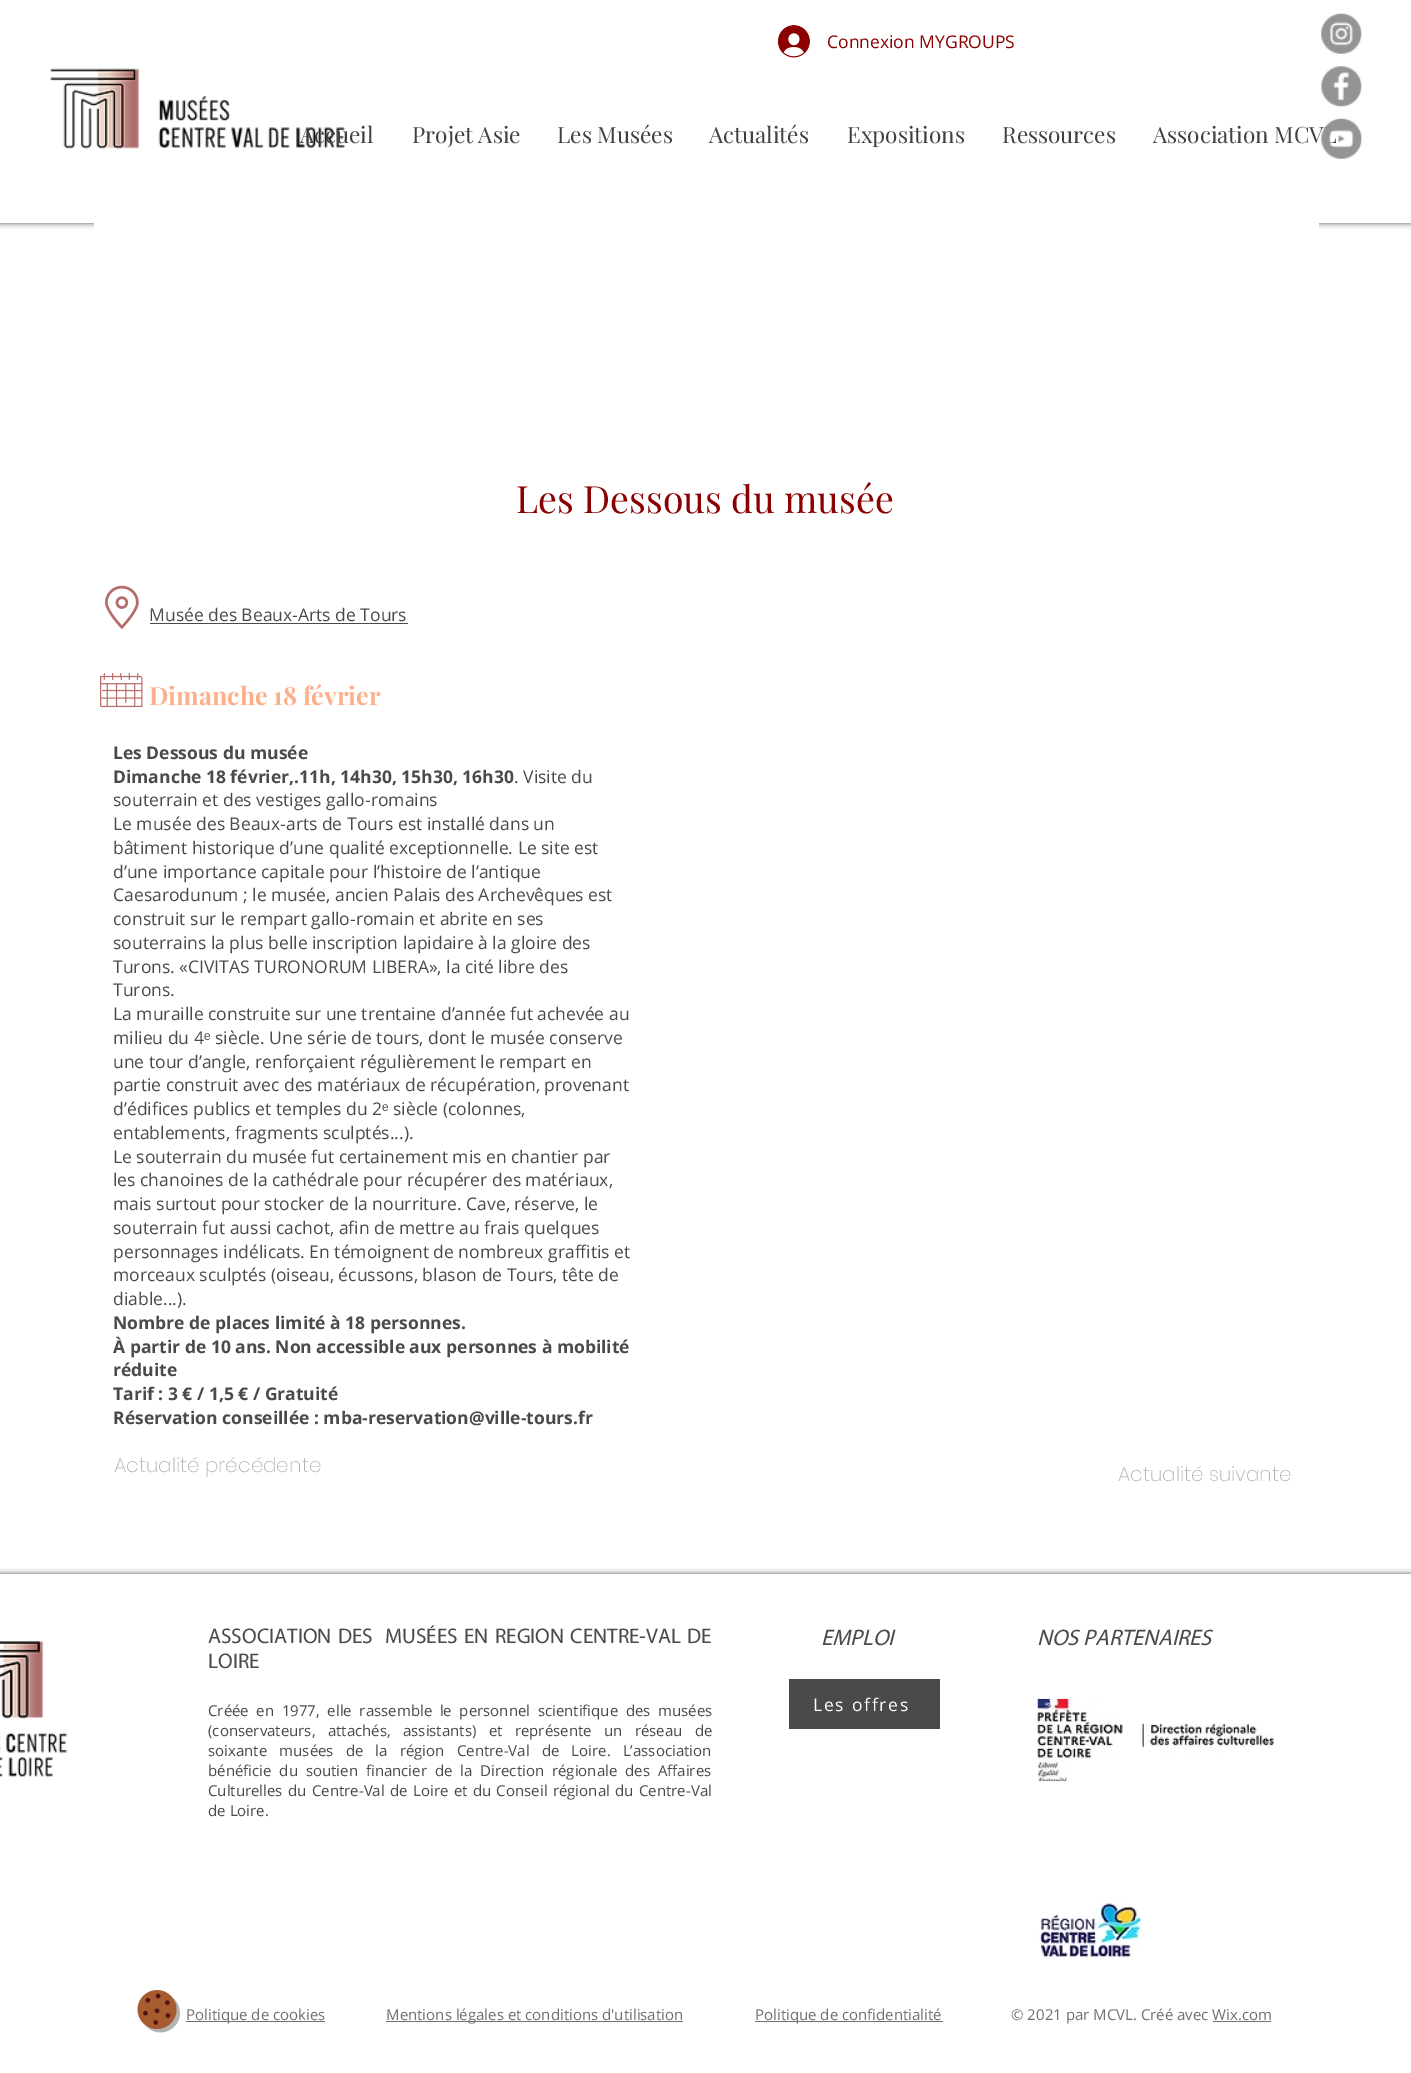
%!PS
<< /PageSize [1411 2073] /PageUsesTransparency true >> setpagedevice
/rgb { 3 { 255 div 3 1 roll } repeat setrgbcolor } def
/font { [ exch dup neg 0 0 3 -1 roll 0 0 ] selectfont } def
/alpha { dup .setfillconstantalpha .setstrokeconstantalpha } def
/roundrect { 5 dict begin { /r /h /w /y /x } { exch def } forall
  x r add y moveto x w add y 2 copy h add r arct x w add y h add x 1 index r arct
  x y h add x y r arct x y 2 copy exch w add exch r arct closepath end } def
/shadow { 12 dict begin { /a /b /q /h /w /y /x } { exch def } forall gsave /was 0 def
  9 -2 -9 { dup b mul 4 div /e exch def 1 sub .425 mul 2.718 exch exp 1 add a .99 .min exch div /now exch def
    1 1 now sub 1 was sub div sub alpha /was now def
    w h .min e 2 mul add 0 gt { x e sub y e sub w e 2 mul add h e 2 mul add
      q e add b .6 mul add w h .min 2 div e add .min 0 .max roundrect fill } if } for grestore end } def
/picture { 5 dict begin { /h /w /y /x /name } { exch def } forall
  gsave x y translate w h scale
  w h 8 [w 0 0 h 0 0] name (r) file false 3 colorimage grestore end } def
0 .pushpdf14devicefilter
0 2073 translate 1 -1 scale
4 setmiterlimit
255 255 255 rgb
0 0 1411 2073 rectfill
0 0 0 rgb
0 0 1411 223 0 3 0.7 shadow
255 255 255 rgb
0 0 1411 223 rectfill
(img/1.rgb) 50 68 296 81 picture
(img/2.rgb) 778 25 32 33 picture
(img/3.rgb) 1321 13 41 41 picture
(img/4.rgb) 1321 66 41 41 picture
94 223 1225 7 rectfill
(img/6.rgb) 105 585 34 45 picture
74 74 74 rgb
150 623 258 1 rectfill
(img/7.rgb) 100 673 43 35 picture
gsave
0 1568 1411 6 rectclip
0 0 0 rgb
0 1574 1411 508 0 3 0.7 shadow
grestore
(img/8.rgb) 0 1641 68 136 picture
789 1679 151 50 rectfill
(img/9.rgb) 1037 1698 237 84 picture
(img/10.rgb) 1039 1898 106 61 picture
(img/11.rgb) 137 1990 43 43 picture
[
  [186 2021 139 1 113 112 112]
  [386 2021 297 1 113 112 112]
  [755 2021 188 1 113 112 112]
  [1213 2021 58 1 113 112 112]
] { aload pop rgb rectfill } forall
/OpenSans-Regular 17.5 font
139 0 0 rgb
827 48 moveto (Connexion MYGROUPS) show
/PlayfairDisplay-Regular 22.5 font
63 64 67 rgb
[
  [(Accueil) 300 143]
  [(Projet Asie) 412 143]
  [(Les Musées) 557 143]
  [(Actualités) 709 143]
  [(Expositions) 847 143]
  [(Ressources) 1002 143]
  [(Association MCV) 1153 143]
] { aload pop moveto show } forall
(img/5.rgb) 1321 118 41 41 picture
/PlayfairDisplay-Regular 37.5 font
139 0 0 rgb
516 513 moveto (Les Dessous du musée) show
/OpenSans-Regular 17.5 font
74 74 74 rgb
149 621 moveto (Musée des Beaux-Arts de Tours) show
/PlayfairDisplay-Bold 25 font
253 175 137 rgb
149 705 moveto (Dimanche 18 février) show
/OpenSans-Bold 17.5 font
74 74 74 rgb
113 759 moveto (Les Dessous du musée) show
113 783 moveto (Dimanche 18 février,.11h, 14h30, 15h30, 16h30) show
/OpenSans-Regular 17.5 font
[
  [(. Visite du) 514 783]
  [(souterrain et des vestiges gallo-romains) 113 806]
  [(Le musée des Beaux-arts de Tours est installé dans un) 113 830]
  [(bâtiment historique d’une qualité exceptionnelle. Le site est) 113 854]
  [(d’une importance capitale pour l’histoire de l’antique) 113 878]
  [(Caesarodunum ; le musée, ancien Palais des Archevêques est) 113 901]
  [(construit sur le rempart gallo-romain et abrite en ses) 113 925]
  [(souterrains la plus belle inscription lapidaire à la gloire des) 113 949]
  [(Turons. «CIVITAS TURONORUM LIBERA», la cité libre des) 113 973]
  [(Turons.) 113 996]
  [(La muraille construite sur une trentaine d’année fut achevée au) 113 1020]
  [(milieu du 4) 113 1044]
] { aload pop moveto show } forall
/LiberationSans-Regular 17.5 font
204 1044 moveto (ᵉ) show
/OpenSans-Regular 17.5 font
[
  [(siècle. Une série de tours, dont le musée conserve) 215 1044]
  [(une tour d’angle, renforçaient régulièrement le rempart en) 113 1068]
  [(partie construit avec des matériaux de récupération, provenant) 113 1091]
  [(d’édifices publics et temples du 2) 113 1115]
] { aload pop moveto show } forall
/LiberationSans-Regular 17.5 font
382 1115 moveto (ᵉ) show
/OpenSans-Regular 17.5 font
[
  [(siècle \(colonnes,) 393 1115]
  [(entablements, fragments sculptés...\).) 113 1139]
  [(Le souterrain du musée fut certainement mis en chantier par) 113 1163]
  [(les chanoines de la cathédrale pour récupérer des matériaux,) 113 1186]
  [(mais surtout pour stocker de la nourriture. Cave, réserve, le) 113 1210]
  [(souterrain fut aussi cachot, afin de mettre au frais quelques) 113 1234]
  [(personnages indélicats. En témoignent de nombreux graffitis et) 113 1258]
  [(morceaux sculptés \(oiseau, écussons, blason de Tours, tête de) 113 1281]
  [(diable...\).) 113 1305]
] { aload pop moveto show } forall
/OpenSans-Bold 17.5 font
[
  [(Nombre de places limité à 18 personnes.) 113 1329]
  [(À partir de 10 ans. Non accessible aux personnes à mobilité) 113 1353]
  [(réduite) 113 1376]
  [(Tarif : 3 € / 1,5 € / Gratuité) 113 1400]
  [(Réservation conseillée : mba-reservation@ville-tours.fr) 113 1424]
] { aload pop moveto show } forall
/Poppins-ExtraLight 20 font
178 180 180 rgb
114 1472 moveto (Actualité précédente) show
1118 1481 moveto (Actualité suivante) show
/Myriad-Regular 21.25 font
74 74 74 rgb
208 1643 moveto 1.75 0 32 (ASSOCIATION DES  MUSÉES EN REGION CENTRE-VAL DE) widthshow
208 1668 moveto (LOIRE) show
/OpenSans-Regular 15 font
208 1716 moveto 3.75 0 32 (Créée en 1977, elle rassemble le personnel scientifique des musées) widthshow
208 1736 moveto 8.5 0 32 (\(conservateurs, attachés, assistants\) et représente un réseau de) widthshow
208 1756 moveto 8.25 0 32 (soixante musées de la région Centre-Val de Loire. L’association) widthshow
208 1776 moveto 4 0 32 (bénéficie du soutien financier de la Direction régionale des Affaires) widthshow
208 1796 moveto 1.5 0 32 (Culturelles du Centre-Val de Loire et du Conseil régional du Centre-Val) widthshow
208 1816 moveto (de Loire.) show
/Myriad-Italic 22.5 font
821 1645 moveto (EMPLOI) show
1037 1645 moveto (NOS PARTENAIRES) show
/OpenSans-Regular 17.5 font
255 255 255 rgb
813 1711 moveto 1.75 0 (Les offres) ashow
/OpenSans-Regular 15 font
113 112 112 rgb
[
  [(Politique de cookies) 186 2020]
  [(Mentions légales et conditions d'utilisation) 386 2020]
  [(Politique de confidentialité) 755 2020]
  [(© 2021 par MCVL. Créé avec Wix.com) 1011 2020]
] { aload pop moveto show } forall
.poppdf14devicefilter showpage
